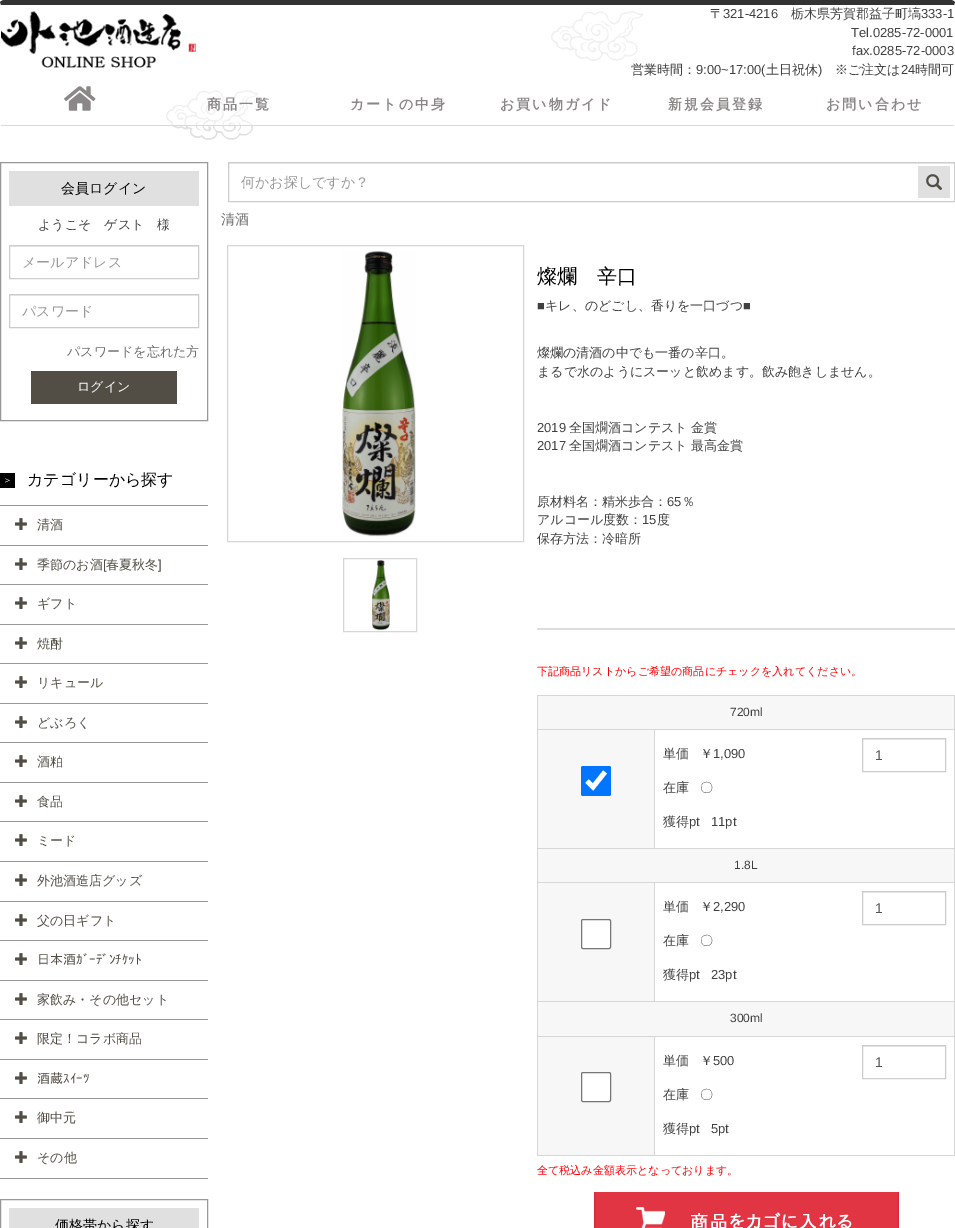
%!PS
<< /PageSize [955 1228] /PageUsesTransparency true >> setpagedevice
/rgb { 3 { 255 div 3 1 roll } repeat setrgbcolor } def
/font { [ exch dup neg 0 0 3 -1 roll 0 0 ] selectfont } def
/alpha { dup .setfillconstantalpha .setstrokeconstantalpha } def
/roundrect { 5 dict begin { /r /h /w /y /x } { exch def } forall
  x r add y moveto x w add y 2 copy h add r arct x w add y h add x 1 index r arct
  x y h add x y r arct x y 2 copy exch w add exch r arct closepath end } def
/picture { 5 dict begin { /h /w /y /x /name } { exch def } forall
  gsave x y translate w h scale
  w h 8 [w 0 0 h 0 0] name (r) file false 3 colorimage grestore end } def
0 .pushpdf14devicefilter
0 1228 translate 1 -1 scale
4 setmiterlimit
255 255 255 rgb
0 0 955 1228 rectfill
(img/1.rgb) 166 11 477 129 picture
0.5 alpha
0 0 955 125 4 roundrect fill
1 alpha
51 51 51 rgb
4 0 moveto 3 0 1 1 0 2 curveto 1 5 lineto 954 5 lineto 955 2 lineto 954 1 952 0 951 0 curveto closepath fill
(img/2.rgb) 1 11 196 57 picture
(img/3.rgb) 64 86 32 25 picture
217 217 217 rgb
1 125 953 1 rectfill
152 152 152 rgb
0.5 162.5 207 258 rectstroke
224 224 224 rgb
9 171 190 35 rectfill
236 236 236 rgb
10 246 188 1 rectfill
204 204 204 rgb
9.5 245.5 189 33 rectstroke
236 236 236 rgb
10 295 188 1 rectfill
204 204 204 rgb
9.5 294.5 189 33 rectstroke
[
  [31 371 146 33 82 78 70]
  [0 473 15 15 0 0 0]
  [0 505 208 1 152 152 152]
] { aload pop rgb rectfill } forall
(img/4.rgb) 15 518 12 12 picture
0 545 208 1 rectfill
(img/4.rgb) 15 558 12 12 picture
0 584 208 1 rectfill
(img/4.rgb) 15 597 12 12 picture
0 624 208 1 rectfill
(img/4.rgb) 15 637 12 12 picture
0 663 208 1 rectfill
(img/4.rgb) 15 676 12 12 picture
0 703 208 1 rectfill
(img/4.rgb) 15 716 12 12 picture
0 742 208 1 rectfill
(img/4.rgb) 15 755 12 12 picture
0 782 208 1 rectfill
(img/4.rgb) 15 795 12 12 picture
0 821 208 1 rectfill
(img/4.rgb) 15 834 12 12 picture
0 861 208 1 rectfill
(img/4.rgb) 15 874 12 12 picture
0 901 208 1 rectfill
(img/4.rgb) 15 914 12 12 picture
0 940 208 1 rectfill
(img/4.rgb) 15 953 12 12 picture
0 980 208 1 rectfill
(img/4.rgb) 15 993 12 12 picture
0 1019 208 1 rectfill
(img/4.rgb) 15 1032 12 12 picture
0 1059 208 1 rectfill
(img/4.rgb) 15 1072 12 12 picture
0 1098 208 1 rectfill
(img/4.rgb) 15 1111 12 12 picture
0 1138 208 1 rectfill
0 1178 208 1 rectfill
(img/4.rgb) 15 1151 12 12 picture
0.5 1199.5 207 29 rectstroke
224 224 224 rgb
9 1208 190 20 rectfill
236 236 236 rgb
229 163 725 1 rectfill
204 204 204 rgb
228.5 162.5 726 39 rectstroke
224 224 224 rgb
918 166 32 32 rectfill
(img/5.rgb) 926 174 17 16 picture
214 214 214 rgb
227.5 245.5 296 296 rectstroke
(img/6.rgb) 342 251 74 286 picture
343.5 558.5 73 73 rectstroke
(img/7.rgb) 372 560 18 71 picture
[
  [537 628 418 2 221 221 221]
  [538 696 416 33 248 247 247]
  [537 695 418 1 214 214 214]
  [654 729 301 1 214 214 214]
  [537 848 418 1 214 214 214]
  [654 882 301 1 214 214 214]
  [537 1001 418 1 214 214 214]
  [654 1036 301 1 214 214 214]
  [954 1036 1 120 214 214 214]
  [954 1001 1 36 214 214 214]
  [954 882 1 120 214 214 214]
  [954 848 1 35 214 214 214]
  [954 729 1 120 214 214 214]
  [954 695 1 35 214 214 214]
  [654 729 1 120 214 214 214]
  [537 729 118 1 214 214 214]
  [654 882 1 120 214 214 214]
  [537 882 118 1 214 214 214]
  [654 1155 301 1 214 214 214]
  [654 1036 1 120 214 214 214]
  [537 1036 118 1 214 214 214]
  [537 1155 118 1 214 214 214]
  [537 1036 1 120 214 214 214]
  [537 1001 1 36 214 214 214]
  [537 882 1 120 214 214 214]
  [537 848 1 35 214 214 214]
  [537 729 1 120 214 214 214]
  [537 695 1 35 214 214 214]
  [538 730 116 118 248 247 247]
] { aload pop rgb rectfill } forall
0 117 255 rgb
581 766 30 30 2 roundrect fill
255 255 255 rgb
4.8 setlinewidth
587 781 moveto 593 787 lineto 605 772 lineto stroke
236 236 236 rgb
863 739 82 1 rectfill
204 204 204 rgb
1 setlinewidth
862.5 738.5 83 33 rectstroke
248 247 247 rgb
538 849 416 33 rectfill
538 883 116 118 rectfill
255 255 255 rgb
581.5 919.5 29 29 1.5 roundrect gsave fill grestore
118 118 118 rgb
stroke
236 236 236 rgb
863 892 82 1 rectfill
204 204 204 rgb
862.5 891.5 83 33 rectstroke
248 247 247 rgb
538 1002 416 34 rectfill
538 1037 116 118 rectfill
255 255 255 rgb
581.5 1072.5 29 29 1.5 roundrect gsave fill grestore
118 118 118 rgb
stroke
236 236 236 rgb
863 1046 82 1 rectfill
204 204 204 rgb
862.5 1045.5 83 33 rectstroke
(img/8.rgb) 594 1192 305 36 picture
/WenQuanYiZenHei-Medium 13 font
64 64 64 rgb
710 18 moveto (〒) show
/LiberationSans-Regular 13 font
723 18 moveto (321-4216) show
/WenQuanYiZenHei-Medium 13 font
791 18 moveto (栃木県芳賀郡益子町塙) show
/LiberationSans-Regular 13 font
[
  [(333-1) 921 18]
  [(Tel.0285-72-0001) 851 37]
  [(fax.0285-72-0003) 852 55]
] { aload pop moveto show } forall
/WenQuanYiZenHei-Medium 13 font
631 74 moveto (営業時間：) show
/LiberationSans-Regular 13 font
696 74 moveto (9:00~17:00\() show
/WenQuanYiZenHei-Medium 13 font
766 74 moveto (土日祝休) show
/LiberationSans-Regular 13 font
818 74 moveto (\)) show
/WenQuanYiZenHei-Medium 13 font
835 74 moveto (※ご注文は) show
/LiberationSans-Regular 13 font
901 74 moveto (24) show
/WenQuanYiZenHei-Medium 13 font
915 74 moveto (時間可) show
/WenQuanYiZenHei-Bold 14 font
140 135 135 rgb
207 109 moveto 2 0 (商品一覧) ashow
350 109 moveto 2 0 (カートの中身) ashow
500 109 moveto 2 0 (お買い物ガイド) ashow
668 109 moveto 2 0 (新規会員登録) ashow
826 109 moveto 2 0 (お問い合わせ) ashow
/WenQuanYiZenHei-Medium 14 font
0 0 0 rgb
61 193 moveto (会員ログイン) show
/WenQuanYiZenHei-Medium 13 font
64 64 64 rgb
38 229 moveto (ようこそ　ゲスト　様) show
/WenQuanYiZenHei-Medium 14 font
153 153 153 rgb
22 267 moveto (メールアドレス) show
22 316 moveto (パスワード) show
/WenQuanYiZenHei-Medium 13 font
109 109 109 rgb
67 356 moveto (パスワードを忘れた方) show
255 255 255 rgb
77 391 moveto (ログイン) show
/WenQuanYiZenHei-Medium 9 font
3 483 moveto (＞) show
/WenQuanYiZenHei-Medium 16 font
0 0 0 rgb
27 485 moveto (カテゴリーから探す) show
/WenQuanYiZenHei-Medium 13 font
82 78 70 rgb
37 529 moveto (清酒) show
37 569 moveto (季節のお酒) show
/LiberationSans-Regular 13 font
103 569 moveto ([) show
/WenQuanYiZenHei-Medium 13 font
106 569 moveto (春夏秋冬) show
/LiberationSans-Regular 13 font
158 569 moveto (]) show
/WenQuanYiZenHei-Medium 13 font
[
  [(ギフト) 37 608]
  [(焼酎) 37 648]
  [(リキュール) 37 687]
  [(どぶろく) 37 727]
  [(酒粕) 37 766]
  [(食品) 37 806]
  [(ミード) 37 845]
  [(外池酒造店グッズ) 37 885]
  [(父の日ギフト) 37 925]
] { aload pop moveto show } forall
/IPAPGothic-Regular 13 font
37 964 moveto (日本酒ｶﾞｰﾃﾞﾝﾁｹｯﾄ) show
/WenQuanYiZenHei-Medium 13 font
37 1004 moveto (家飲み・その他セット) show
37 1043 moveto (限定！コラボ商品) show
/IPAPGothic-Regular 13 font
37 1083 moveto (酒蔵ｽｲｰﾂ) show
/WenQuanYiZenHei-Medium 13 font
37 1122 moveto (御中元) show
37 1162 moveto (その他) show
/WenQuanYiZenHei-Medium 14 font
0 0 0 rgb
55 1230 moveto (価格帯から探す) show
153 153 153 rgb
241 187 moveto (何かお探しですか？) show
109 109 109 rgb
221 224 moveto (清酒) show
/WenQuanYiZenHei-Medium 20 font
0 0 0 rgb
537 283 moveto (燦爛　辛口) show
/LiberationSans-Regular 13 font
64 64 64 rgb
537 310 moveto (■) show
/WenQuanYiZenHei-Medium 13 font
545 310 moveto (キレ、のどごし、香りを一口づつ) show
/LiberationSans-Regular 13 font
743 310 moveto (■) show
/WenQuanYiZenHei-Medium 13 font
537 357 moveto (燦爛の清酒の中でも一番の辛口。) show
537 376 moveto (まるで水のようにスーッと飲めます。飲み飽きしません。) show
/LiberationSans-Regular 13 font
537 432 moveto (2019) show
/WenQuanYiZenHei-Medium 13 font
569 432 moveto (全国燗酒コンテスト 金賞) show
/LiberationSans-Regular 13 font
537 450 moveto (2017) show
/WenQuanYiZenHei-Medium 13 font
569 450 moveto (全国燗酒コンテスト 最高金賞) show
537 506 moveto (原材料名：精米歩合：) show
/LiberationSans-Regular 13 font
667 506 moveto (65) show
/WenQuanYiZenHei-Medium 13 font
682 506 moveto (％) show
537 524 moveto (アルコール度数：) show
/LiberationSans-Regular 13 font
642 524 moveto (15) show
/WenQuanYiZenHei-Medium 13 font
657 524 moveto (度) show
537 543 moveto (保存方法：冷暗所) show
/WenQuanYiZenHei-Medium 11.05 font
255 0 0 rgb
537 675 moveto (下記商品リストからご希望の商品にチェックを入れてください。) show
/LiberationSans-Regular 12 font
64 64 64 rgb
730 716 moveto (720ml) show
/WenQuanYiZenHei-Medium 13 font
663 758 moveto (単価) show
700 758 moveto (￥) show
/LiberationSans-Regular 13 font
713 758 moveto (1,090) show
/WenQuanYiZenHei-Medium 13 font
[
  [(在庫) 663 792]
  [(〇) 700 792]
  [(獲得) 663 826]
] { aload pop moveto show } forall
/LiberationSans-Regular 13 font
689 826 moveto (pt) show
711 826 moveto (11pt) show
/LiberationSans-Regular 14 font
85 85 85 rgb
875 760 moveto (1) show
/LiberationSans-Regular 12 font
64 64 64 rgb
734 869 moveto (1.8L) show
/WenQuanYiZenHei-Medium 13 font
663 911 moveto (単価) show
700 911 moveto (￥) show
/LiberationSans-Regular 13 font
713 911 moveto (2,290) show
/WenQuanYiZenHei-Medium 13 font
[
  [(在庫) 663 945]
  [(〇) 700 945]
  [(獲得) 663 979]
] { aload pop moveto show } forall
/LiberationSans-Regular 13 font
689 979 moveto (pt) show
711 979 moveto (23pt) show
/LiberationSans-Regular 14 font
85 85 85 rgb
875 913 moveto (1) show
/LiberationSans-Regular 12 font
64 64 64 rgb
730 1022 moveto (300ml) show
/WenQuanYiZenHei-Medium 13 font
663 1065 moveto (単価) show
700 1065 moveto (￥) show
/LiberationSans-Regular 13 font
713 1065 moveto (500) show
/WenQuanYiZenHei-Medium 13 font
[
  [(在庫) 663 1099]
  [(〇) 700 1099]
  [(獲得) 663 1133]
] { aload pop moveto show } forall
/LiberationSans-Regular 13 font
689 1133 moveto (pt) show
711 1133 moveto (5pt) show
/LiberationSans-Regular 14 font
85 85 85 rgb
875 1067 moveto (1) show
/WenQuanYiZenHei-Medium 11.05 font
255 0 0 rgb
537 1174 moveto (全て税込み金額表示となっております。) show
.poppdf14devicefilter showpage
